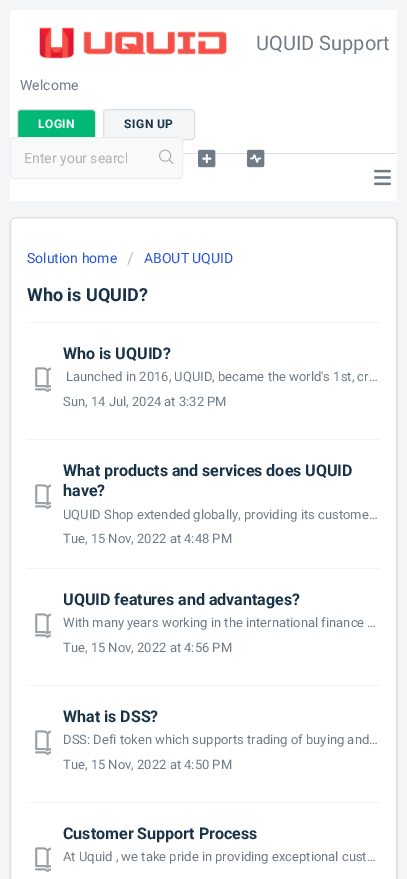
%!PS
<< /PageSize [407 879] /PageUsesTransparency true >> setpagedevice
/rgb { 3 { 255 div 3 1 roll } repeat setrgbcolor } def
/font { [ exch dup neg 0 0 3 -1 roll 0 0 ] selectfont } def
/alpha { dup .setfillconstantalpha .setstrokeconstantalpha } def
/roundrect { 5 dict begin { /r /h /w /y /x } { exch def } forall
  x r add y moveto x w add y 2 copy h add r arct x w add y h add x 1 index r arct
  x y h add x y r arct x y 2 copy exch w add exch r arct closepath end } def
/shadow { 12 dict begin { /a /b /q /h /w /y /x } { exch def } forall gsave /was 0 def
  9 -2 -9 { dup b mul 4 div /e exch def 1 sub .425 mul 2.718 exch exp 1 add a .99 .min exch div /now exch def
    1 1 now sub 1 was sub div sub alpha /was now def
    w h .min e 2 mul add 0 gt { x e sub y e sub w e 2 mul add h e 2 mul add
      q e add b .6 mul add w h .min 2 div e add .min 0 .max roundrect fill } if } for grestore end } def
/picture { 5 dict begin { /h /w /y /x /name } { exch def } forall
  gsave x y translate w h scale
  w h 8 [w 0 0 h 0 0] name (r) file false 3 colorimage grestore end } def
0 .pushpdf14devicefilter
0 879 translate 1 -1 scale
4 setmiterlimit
243 245 247 rgb
0 0 407 879 rectfill
255 255 255 rgb
10 10 387 143 rectfill
218 223 227 rgb
183 153 214 1 rectfill
(img/1.rgb) 39 27 188 32 picture
2 184 117 rgb
17.5 109.5 78 30 3.5 roundrect gsave fill grestore
218 223 227 rgb
stroke
243 245 247 rgb
103.5 109.5 91 30 3.5 roundrect gsave fill grestore
218 223 227 rgb
stroke
255 255 255 rgb
10 154 387 47 rectfill
248 249 250 rgb
10.5 137.5 172 41 3.5 roundrect gsave fill grestore
235 238 240 rgb
stroke
(img/2.rgb) 159 149 15 15 picture
(img/3.rgb) 198 149 18 19 picture
(img/4.rgb) 247 149 18 19 picture
(img/5.rgb) 374 169 17 17 picture
248 249 250 rgb
10 217 387 6 rectfill
63 63 68 rgb
10 218 387 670 6 1 0.15 shadow
255 255 255 rgb
10.5 217.5 386 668 5.5 roundrect gsave fill grestore
218 223 227 rgb
stroke
243 243 243 rgb
27 322 353 1 rectfill
(img/6.rgb) 35 367 16 26 picture
27 439 353 1 rectfill
(img/6.rgb) 35 484 16 26 picture
27 568 353 1 rectfill
(img/6.rgb) 35 613 16 26 picture
27 685 353 1 rectfill
(img/6.rgb) 35 730 16 26 picture
27 802 353 1 rectfill
(img/6.rgb) 35 847 16 26 picture
/Roboto-Regular 20 font
111 124 135 rgb
256 50 moveto (UQUID Support) show
/Roboto-Regular 14 font
20 90 moveto (Welcome) show
/Roboto-Bold 12 font
255 255 255 rgb
38 128 moveto 0.5 0 (LOGIN) ashow
24 50 71 rgb
124 128 moveto 0.5 0 (SIGN UP) ashow
gsave
24 150 103 16 rectclip
/Roboto-Regular 14 font
178 178 178 rgb
24 163 moveto (Enter your search) show
grestore
/Roboto-Regular 14 font
39 83 215 rgb
27 263 moveto (Solution home) show
/Roboto-Regular 16 font
187 187 187 rgb
127 264 moveto (/) show
/Roboto-Regular 14 font
39 83 215 rgb
144 263 moveto (ABOUT UQUID) show
/Roboto-Bold 18 font
24 50 71 rgb
27 301 moveto (Who is UQUID?) show
/Roboto-Bold 16 font
63 359 moveto (Who is UQUID?) show
/Roboto-Regular 13 font
111 124 135 rgb
66 381 moveto (Launched in 2016, UQUID, became the world's 1st, cr…) show
63 406 moveto (Sun, 14 Jul, 2024 at 3:32 PM) show
/Roboto-Bold 16 font
24 50 71 rgb
63 476 moveto (What products and services does UQUID) show
63 496 moveto (have?) show
/Roboto-Regular 13 font
111 124 135 rgb
63 519 moveto (UQUID Shop extended globally, providing its custome…) show
63 543 moveto (Tue, 15 Nov, 2022 at 4:48 PM) show
/Roboto-Bold 16 font
24 50 71 rgb
63 605 moveto (UQUID features and advantages?) show
/Roboto-Regular 13 font
111 124 135 rgb
63 627 moveto (With many years working in the international finance …) show
63 652 moveto (Tue, 15 Nov, 2022 at 4:56 PM) show
/Roboto-Bold 16 font
24 50 71 rgb
63 722 moveto (What is DSS?) show
/Roboto-Regular 13 font
111 124 135 rgb
63 744 moveto (DSS: Defi token which supports trading of buying and…) show
63 769 moveto (Tue, 15 Nov, 2022 at 4:50 PM) show
/Roboto-Bold 16 font
24 50 71 rgb
63 839 moveto (Customer Support Process) show
/Roboto-Regular 13 font
111 124 135 rgb
63 861 moveto (At Uquid , we take pride in providing exceptional cust…) show
.poppdf14devicefilter showpage
